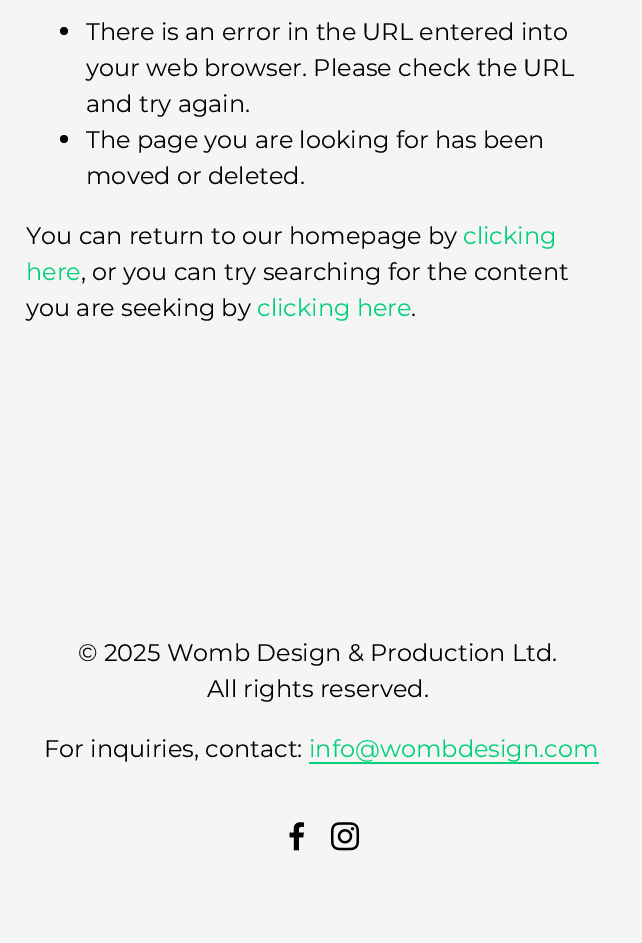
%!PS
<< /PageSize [642 943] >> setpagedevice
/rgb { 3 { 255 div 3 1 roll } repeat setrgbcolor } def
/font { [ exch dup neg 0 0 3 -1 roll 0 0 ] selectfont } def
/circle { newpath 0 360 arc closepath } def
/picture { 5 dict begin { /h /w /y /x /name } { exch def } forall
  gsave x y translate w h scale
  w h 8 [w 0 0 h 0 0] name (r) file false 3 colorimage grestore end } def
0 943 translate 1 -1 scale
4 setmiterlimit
245 245 245 rgb
0 0 642 943 rectfill
0 0 0 rgb
64 31 4 circle fill
64 139 4 circle fill
0 208 122 rgb
309 762 290 2 rectfill
(img/1.rgb) 289 822 16 29 picture
(img/2.rgb) 330 822 30 29 picture
/Montserrat-Regular 24 font
0 0 0 rgb
[
  [(There is an error in the URL entered into) 86 40]
  [(your web browser. Please check the URL) 86 76]
  [(and try again.) 86 112]
  [(The page you are looking for has been) 86 148]
  [(moved or deleted.) 86 184]
  [(You can return to our homepage by) 26 244]
] { aload pop moveto show } forall
0 208 122 rgb
463 244 moveto (clicking) show
26 280 moveto (here) show
0 0 0 rgb
81 280 moveto (, or you can try searching for the content) show
26 316 moveto (you are seeking by) show
0 208 122 rgb
257 316 moveto (clicking here) show
0 0 0 rgb
[
  [(.) 411 316]
  [(© 2025 Womb Design & Production Ltd.) 78 661]
  [(All rights reserved.) 207 697]
  [(For inquiries, contact:) 44 757]
] { aload pop moveto show } forall
0 208 122 rgb
309 757 moveto (info@wombdesign.com) show
showpage
